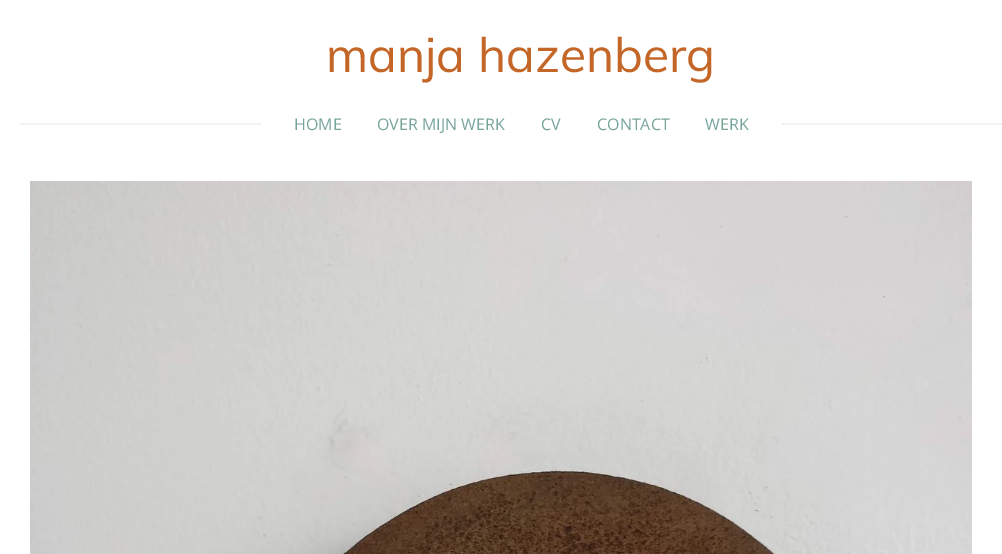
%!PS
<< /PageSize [1002 554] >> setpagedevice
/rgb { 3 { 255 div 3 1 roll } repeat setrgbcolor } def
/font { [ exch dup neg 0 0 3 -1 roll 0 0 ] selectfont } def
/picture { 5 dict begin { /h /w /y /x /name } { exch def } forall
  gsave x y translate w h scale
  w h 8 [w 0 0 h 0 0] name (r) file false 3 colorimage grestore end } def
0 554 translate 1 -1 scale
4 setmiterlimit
255 255 255 rgb
0 0 1002 554 rectfill
242 242 242 rgb
20 123 241 2 rectfill
781 123 221 2 rectfill
(img/1.rgb) 30 181 942 373 picture
/Muli-Regular 48 font
196 102 39 rgb
326 72 moveto (manja hazenberg) show
/OpenSans-Regular 16 font
118 164 154 rgb
[
  [(HOME) 294 130]
  [(OVER MIJN WERK) 377 130]
  [(CV) 541 130]
  [(CONTACT) 597 130]
  [(WERK) 705 130]
] { aload pop moveto show } forall
showpage
